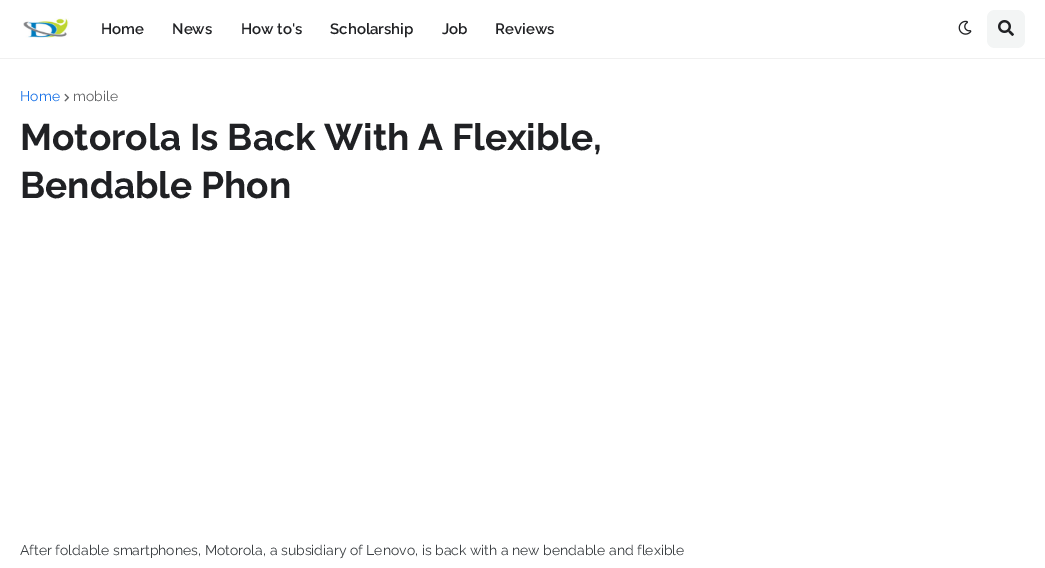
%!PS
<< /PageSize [1045 568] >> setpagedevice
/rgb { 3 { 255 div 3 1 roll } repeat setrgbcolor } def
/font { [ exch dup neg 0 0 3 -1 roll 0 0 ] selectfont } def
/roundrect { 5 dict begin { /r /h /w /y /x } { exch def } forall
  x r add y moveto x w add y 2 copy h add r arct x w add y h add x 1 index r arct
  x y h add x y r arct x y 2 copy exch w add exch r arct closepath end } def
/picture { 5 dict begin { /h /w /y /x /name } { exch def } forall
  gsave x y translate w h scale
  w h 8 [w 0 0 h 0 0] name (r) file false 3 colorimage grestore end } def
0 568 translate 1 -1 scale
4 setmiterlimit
255 255 255 rgb
0 0 1045 568 rectfill
240 240 240 rgb
0 58 1045 1 rectfill
(img/1.rgb) 23 18 46 20 picture
(img/2.rgb) 958 20 14 15 picture
243 245 245 rgb
987 10 38 38 8 roundrect fill
(img/3.rgb) 998 20 16 16 picture
(img/4.rgb) 64 93 6 9 picture
/Raleway-SemiBold 15 font
32 33 36 rgb
[
  [(Home) 101 34]
  [(News) 172 34]
  [(How to's) 241 34]
  [(Scholarship) 330 34]
  [(Job) 442 34]
  [(Reviews) 495 34]
] { aload pop moveto show } forall
/Raleway-Regular 14 font
26 115 232 rgb
20 101 moveto (Home) show
99 100 102 rgb
73 101 moveto (mobile) show
/Raleway-Bold 37 font
32 33 36 rgb
20 150 moveto (Motorola Is Back With A Flexible,) show
20 198 moveto (Bendable Phon) show
/Raleway-Regular 14 font
60 64 67 rgb
20 555 moveto (After foldable smartphones, Motorola, a subsidiary of Lenovo, is back with a new bendable and flexible) show
showpage
